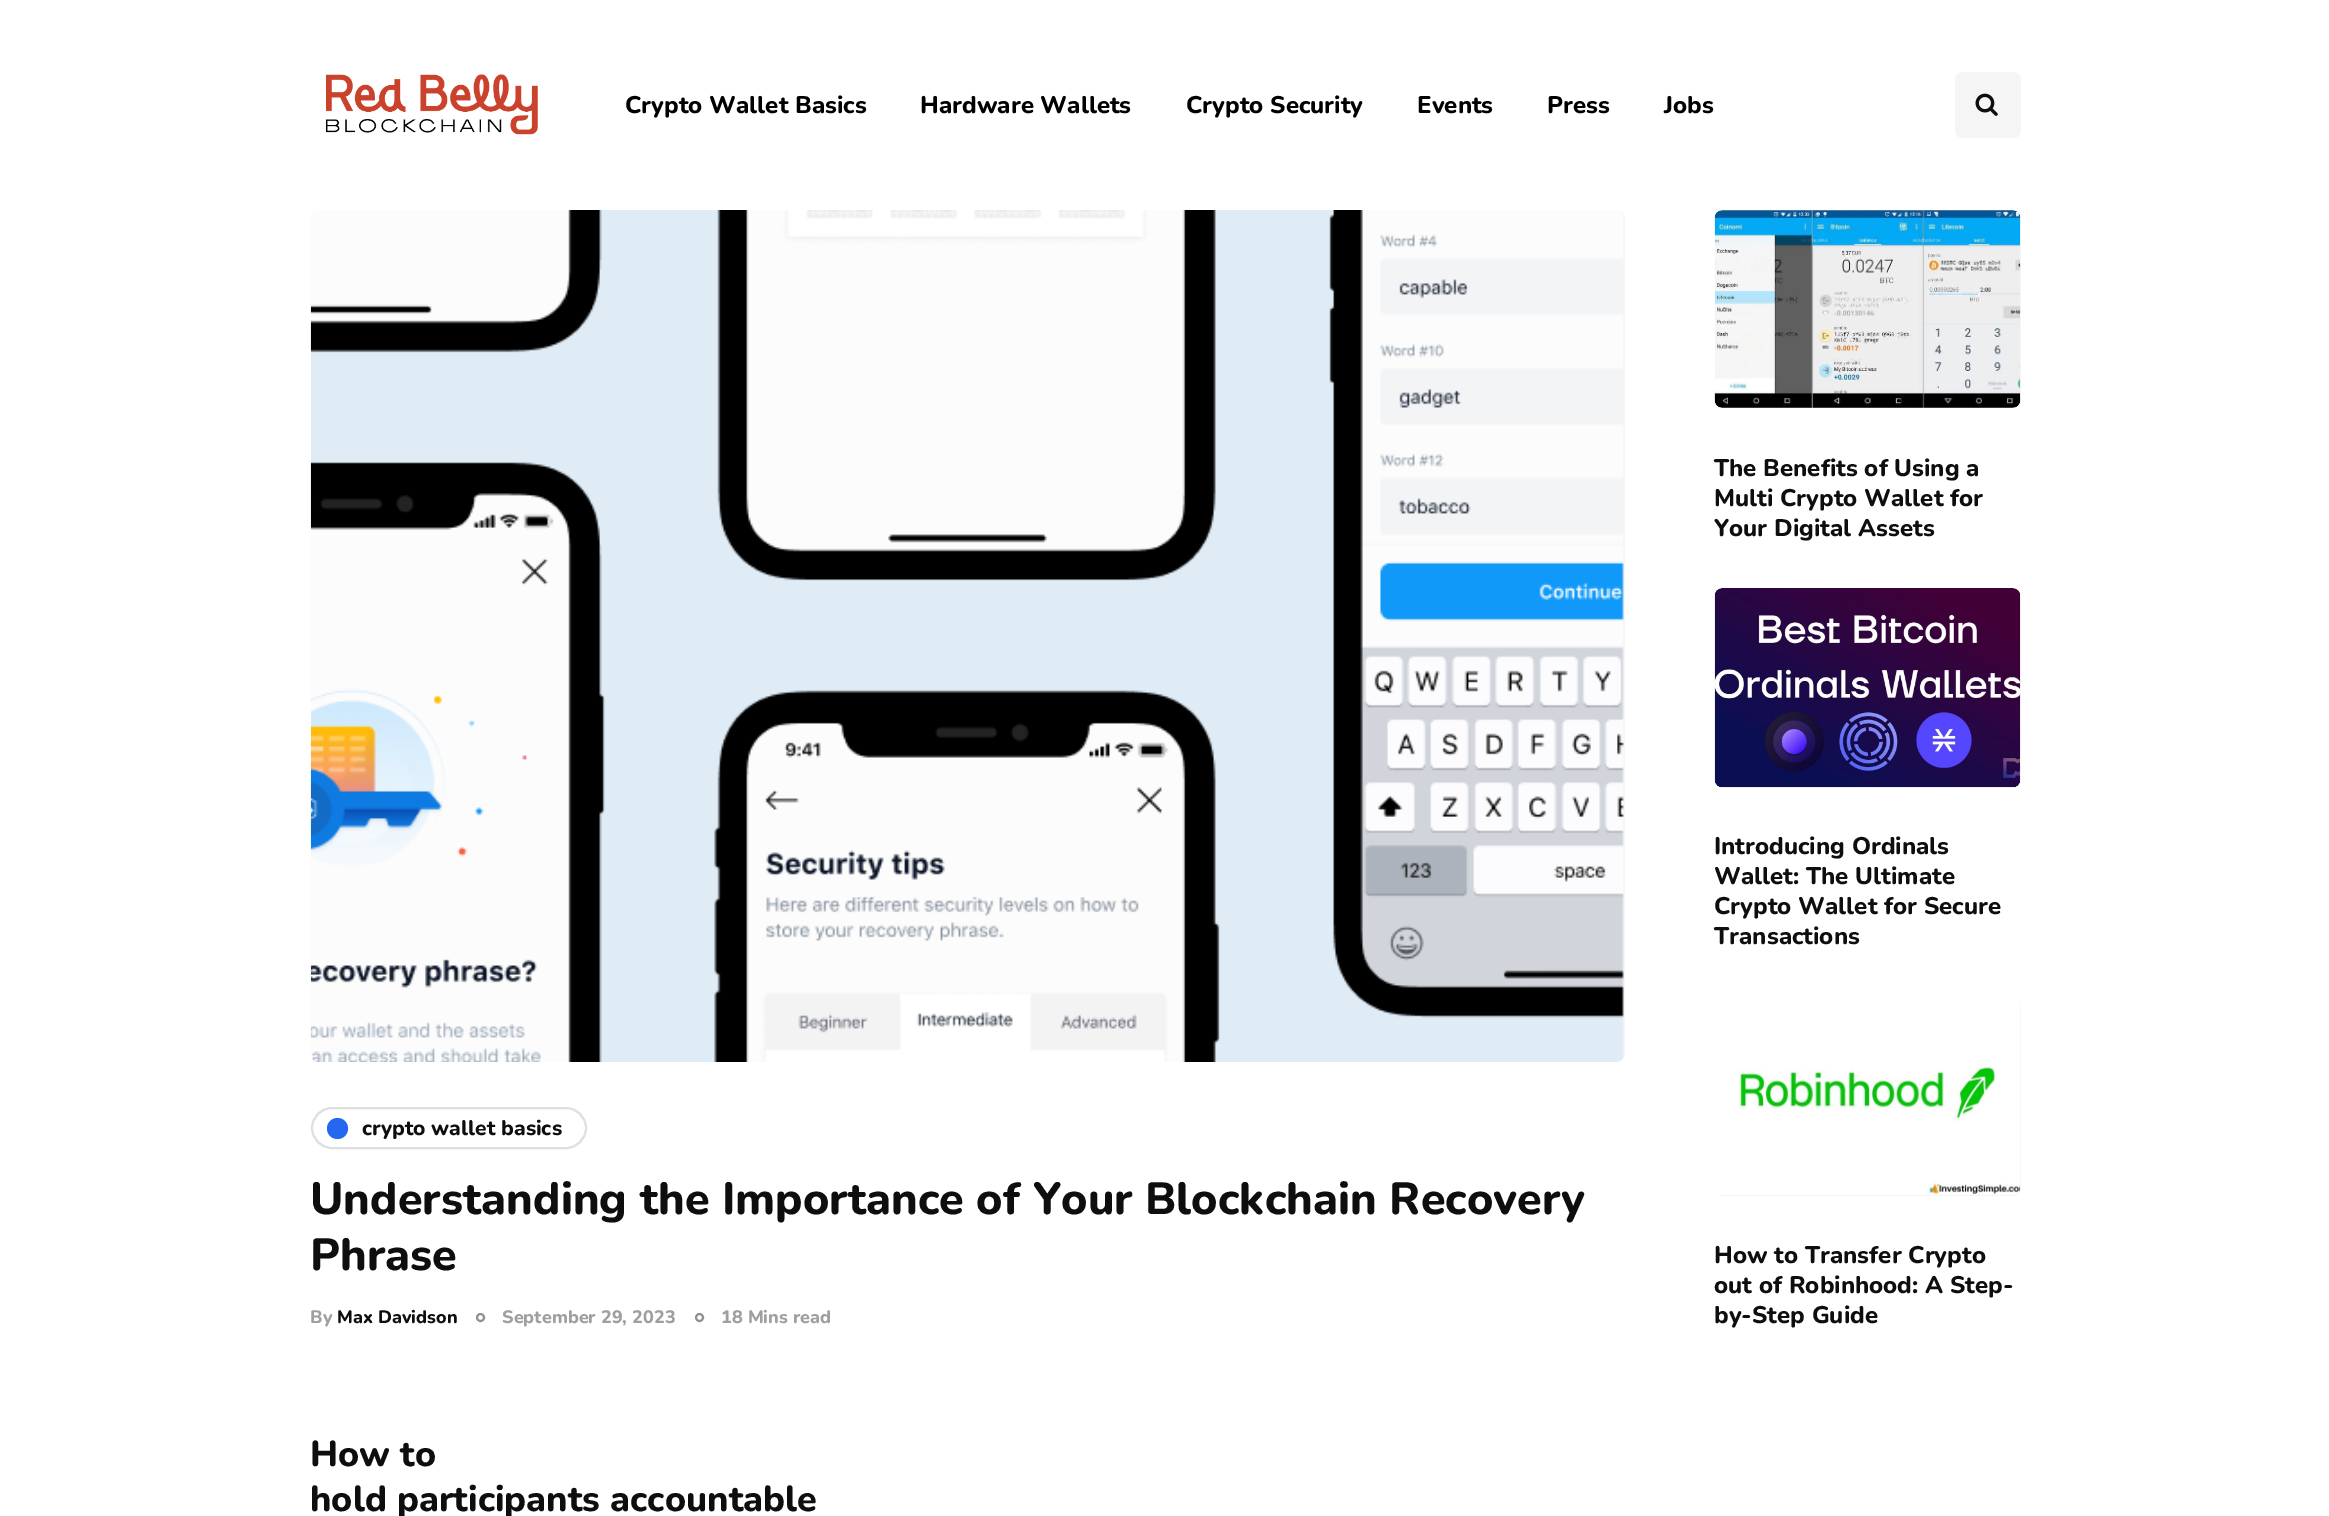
%!PS
<< /PageSize [2329 1516] >> setpagedevice
/rgb { 3 { 255 div 3 1 roll } repeat setrgbcolor } def
/font { [ exch dup neg 0 0 3 -1 roll 0 0 ] selectfont } def
/circle { newpath 0 360 arc closepath } def
/roundrect { 5 dict begin { /r /h /w /y /x } { exch def } forall
  x r add y moveto x w add y 2 copy h add r arct x w add y h add x 1 index r arct
  x y h add x y r arct x y 2 copy exch w add exch r arct closepath end } def
/picture { 5 dict begin { /h /w /y /x /name } { exch def } forall
  gsave x y translate w h scale
  w h 8 [w 0 0 h 0 0] name (r) file false 3 colorimage grestore end } def
0 1516 translate 1 -1 scale
4 setmiterlimit
255 255 255 rgb
0 0 2329 1516 rectfill
(img/1.rgb) 326 74 212 61 picture
245 245 245 rgb
1955 72 66 66 8 roundrect fill
(img/2.rgb) 1975 93 23 23 picture
1715 210 306 198 8 roundrect fill
(img/3.rgb) 1714 210 307 198 picture
1715 588 306 200 8 roundrect fill
(img/4.rgb) 1714 588 307 200 picture
311 210 1314 852 8 roundrect fill
(img/5.rgb) 310 210 1314 852 picture
224 222 222 rgb
2 setlinewidth
312 1108 274 40 20 roundrect stroke
37 104 239 rgb
337.5 1128.5 10.5 circle fill
144 144 144 rgb
480.5 1317.5 3.5 circle stroke
699.5 1317.5 3.5 circle stroke
245 245 245 rgb
1715 998 306 198 8 roundrect fill
(img/6.rgb) 1715 998 306 197 picture
/Nunito-ExtraBold 24 font
0 0 0 rgb
[
  [(Crypto Wallet Basics) 625 113]
  [(Hardware Wallets) 920 113]
  [(Crypto Security) 1186 113]
  [(Events) 1417 113]
  [(Press) 1547 113]
  [(Jobs) 1664 113]
] { aload pop moveto show } forall
15 14 14 rgb
[
  [(The Benefits of Using a) 1714 476]
  [(Multi Crypto Wallet for) 1714 506]
  [(Your Digital Assets) 1714 536]
  [(Introducing Ordinals) 1714 854]
  [(Wallet: The Ultimate) 1714 884]
  [(Crypto Wallet for Secure) 1714 914]
  [(Transactions) 1714 944]
] { aload pop moveto show } forall
/Nunito-ExtraBold 21 font
362 1135 moveto (crypto wallet basics) show
/Nunito-ExtraBold 45 font
310 1214 moveto (Understanding the Importance of Your Blockchain Recovery) show
310 1270 moveto (Phrase) show
/Nunito-ExtraBold 18 font
159 159 159 rgb
310 1323 moveto (By) show
15 14 14 rgb
337 1323 moveto (Max Davidson) show
159 159 159 rgb
502 1323 moveto (September 29, 2023) show
721 1323 moveto (18 Mins read) show
/Nunito-ExtraBold 24 font
15 14 14 rgb
[
  [(How to Transfer Crypto) 1714 1263]
  [(out of Robinhood: A Step-) 1714 1293]
  [(by-Step Guide) 1714 1323]
] { aload pop moveto show } forall
/Nunito-ExtraBold 36 font
310 1466 moveto (How to) show
310 1511 moveto (hold participants accountable) show
showpage
